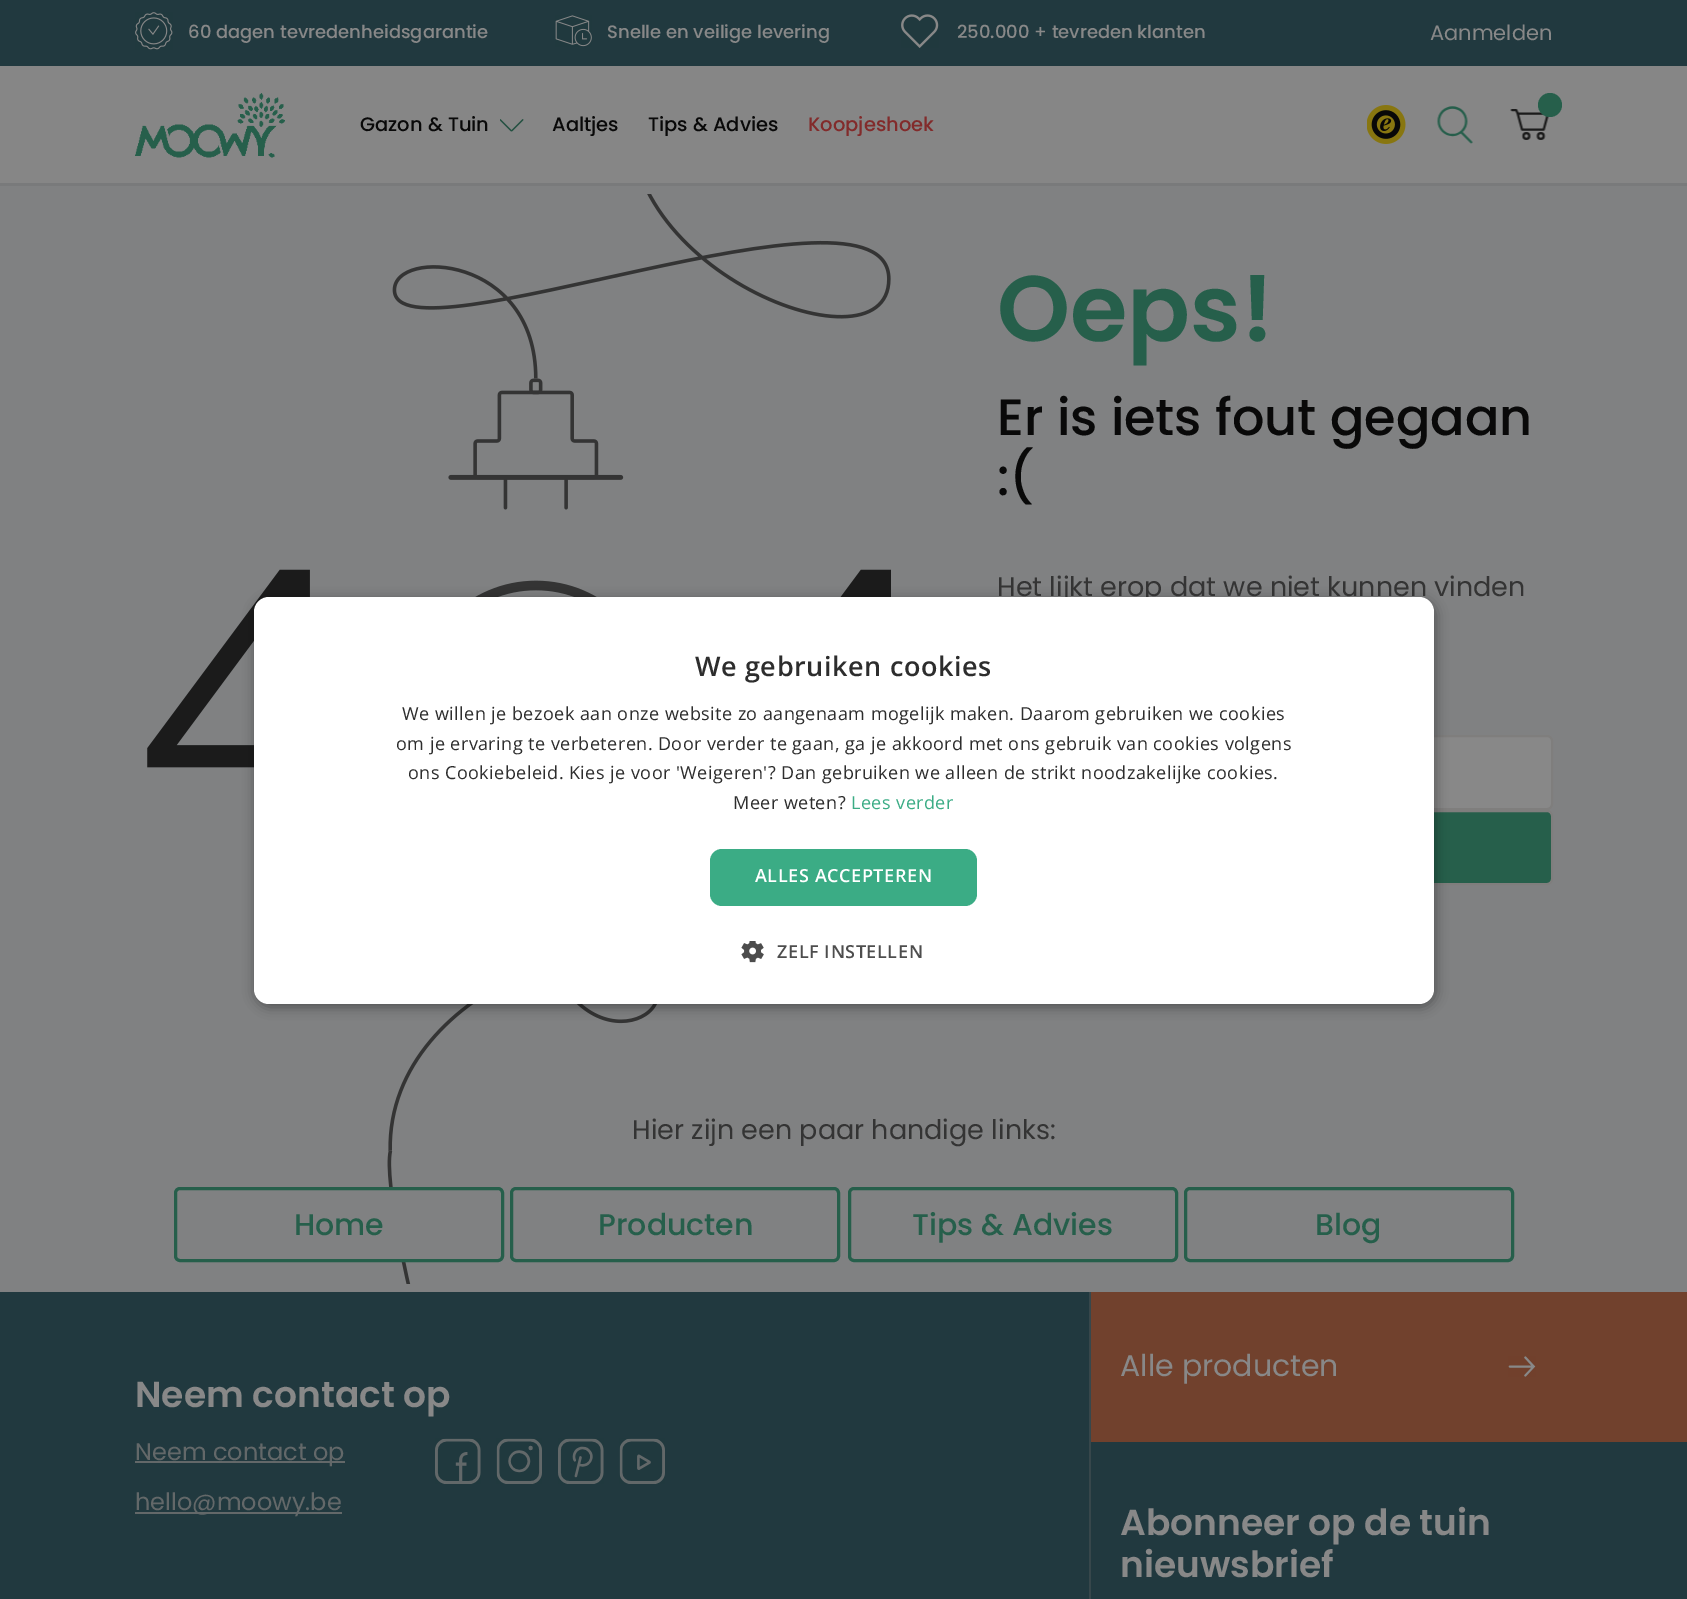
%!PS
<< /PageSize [1687 1599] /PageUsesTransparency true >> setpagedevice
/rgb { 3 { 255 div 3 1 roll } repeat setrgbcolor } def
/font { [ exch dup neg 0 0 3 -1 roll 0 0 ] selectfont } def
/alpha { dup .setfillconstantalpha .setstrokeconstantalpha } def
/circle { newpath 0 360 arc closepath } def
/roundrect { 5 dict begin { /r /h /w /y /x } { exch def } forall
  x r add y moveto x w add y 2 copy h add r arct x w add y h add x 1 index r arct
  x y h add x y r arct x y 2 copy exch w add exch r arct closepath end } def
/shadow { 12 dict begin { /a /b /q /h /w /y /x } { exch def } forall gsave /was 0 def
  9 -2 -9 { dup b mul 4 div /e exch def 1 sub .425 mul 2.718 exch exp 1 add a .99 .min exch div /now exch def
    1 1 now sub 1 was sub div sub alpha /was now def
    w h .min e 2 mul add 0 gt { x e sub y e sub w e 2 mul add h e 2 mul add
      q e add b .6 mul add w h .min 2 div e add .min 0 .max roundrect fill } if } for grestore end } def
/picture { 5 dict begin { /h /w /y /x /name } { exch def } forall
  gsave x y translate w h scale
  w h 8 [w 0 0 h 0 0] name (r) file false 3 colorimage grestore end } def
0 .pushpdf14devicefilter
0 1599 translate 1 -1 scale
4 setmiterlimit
33 57 63 rgb
0 0 1687 1599 rectfill
(img/1.rgb) 135 12 38 38 picture
(img/2.rgb) 555 15 37 32 picture
(img/3.rgb) 901 14 38 34 picture
134 134 134 rgb
0 66 1687 117 rectfill
121 122 123 rgb
0 183 1687 3 rectfill
(img/4.rgb) 135 93 150 65 picture
(img/5.rgb) 500 119 24 13 picture
(img/6.rgb) 1367 105 39 39 picture
(img/7.rgb) 1437 106 36 38 picture
(img/8.rgb) 1510 109 39 31 picture
38 95 75 rgb
1550 105 12 circle fill
128 129 130 rgb
0 186 1687 1106 rectfill
(img/9.rgb) 147 194 744 1090 picture
136 136 136 rgb
999 736 553 73 5 roundrect gsave fill grestore
127 126 125 rgb
2 setlinewidth
stroke
38 95 75 rgb
999 811 553 73 5 roundrect gsave fill grestore
127 126 125 rgb
stroke
128 129 130 rgb
175.5 1188.5 327 72 4.5 roundrect gsave fill grestore
38 95 75 rgb
3 setlinewidth
stroke
511.5 1188.5 327 72 4.5 roundrect stroke
849.5 1188.5 327 72 4.5 roundrect stroke
1185.5 1188.5 327 72 4.5 roundrect stroke
[
  [1089 1292 2 307 55 71 75]
  [135 1461 210 2 99 104 105]
  [135 1512 207 2 99 104 105]
] { aload pop rgb rectfill } forall
(img/10.rgb) 435 1438 46 46 picture
(img/11.rgb) 496 1438 46 46 picture
(img/12.rgb) 558 1438 46 46 picture
(img/13.rgb) 619 1438 46 46 picture
113 65 45 rgb
1091 1292 596 150 rectfill
(img/14.rgb) 1508 1356 28 21 picture
0 0 0 rgb
255 600 1181 407 15 6 0.35 shadow
/Poppins-Medium 18 font
136 136 136 rgb
[
  [(60 dagen tevredenheidsgarantie) 188 38]
  [(Snelle en veilige levering) 607 38]
  [(250.000 + tevreden klanten) 957 38]
] { aload pop moveto show } forall
/Poppins-Regular 21 font
1430 40 moveto (Aanmelden) show
/Poppins-Medium 19.5 font
9 9 9 rgb
[
  [(Gazon & Tuin) 360 131]
  [(Aaltjes) 552 131]
  [(Tips & Advies) 648 131]
] { aload pop moveto show } forall
130 43 43 rgb
808 131 moveto (Koopjeshoek) show
/Poppins-SemiBold 93 font
38 95 75 rgb
997 341 moveto (Oeps!) show
/Poppins-Medium 51 font
9 9 9 rgb
997 435 moveto (Er is iets fout gegaan) show
997 495 moveto (:\() show
/Poppins-Regular 27 font
52 52 52 rgb
997 596 moveto (Het lijkt erop dat we niet kunnen vinden) show
632 1139 moveto (Hier zijn een paar handige links:) show
/Poppins-Medium 30 font
38 95 75 rgb
[
  [(Home) 294 1235]
  [(Producten) 598 1235]
  [(Tips & Advies) 912 1235]
  [(Blog) 1315 1235]
] { aload pop moveto show } forall
/Poppins-SemiBold 36 font
136 136 136 rgb
135 1407 moveto (Neem contact op) show
/Poppins-Regular 24 font
99 104 105 rgb
135 1460 moveto (Neem contact op) show
135 1510 moveto (hello@moowy.be) show
/Poppins-Regular 30 font
136 136 136 rgb
1120 1376 moveto (Alle producten) show
/Poppins-SemiBold 36 font
1120 1535 moveto (Abonneer op de tuin) show
1120 1577 moveto (nieuwsbrief) show
255 255 255 rgb
254 597 1180 407 15 roundrect fill
/OpenSans-SemiBold 27 font
45 45 45 rgb
695 676 moveto 0.6 0 (We gebruiken cookies) ashow
/OpenSans-Regular 18 font
402 720 moveto 0.45 0 (We willen je bezoek aan onze website zo aangenaam mogelijk maken. Daarom gebruiken we cookies) ashow
396 750 moveto 0.45 0 (om je ervaring te verbeteren. Door verder te gaan, ga je akkoord met ons gebruik van cookies volgens) ashow
408 779 moveto 0.45 0 (ons Cookiebeleid. Kies je voor 'Weigeren'? Dan gebruiken we alleen de strikt noodzakelijke cookies.) ashow
733 809 moveto 0.45 0 (Meer weten?) ashow
59 172 133 rgb
851 809 moveto 0.45 0 (Lees verder) ashow
710 849 267 57 12 roundrect fill
/OpenSans-SemiBold 18 font
255 255 255 rgb
755 882 moveto 0.6 0 (ALLES ACCEPTEREN) ashow
(img/15.rgb) 741 941 23 22 picture
77 77 77 rgb
777 958 moveto 0.6 0 (ZELF INSTELLEN) ashow
.poppdf14devicefilter showpage
